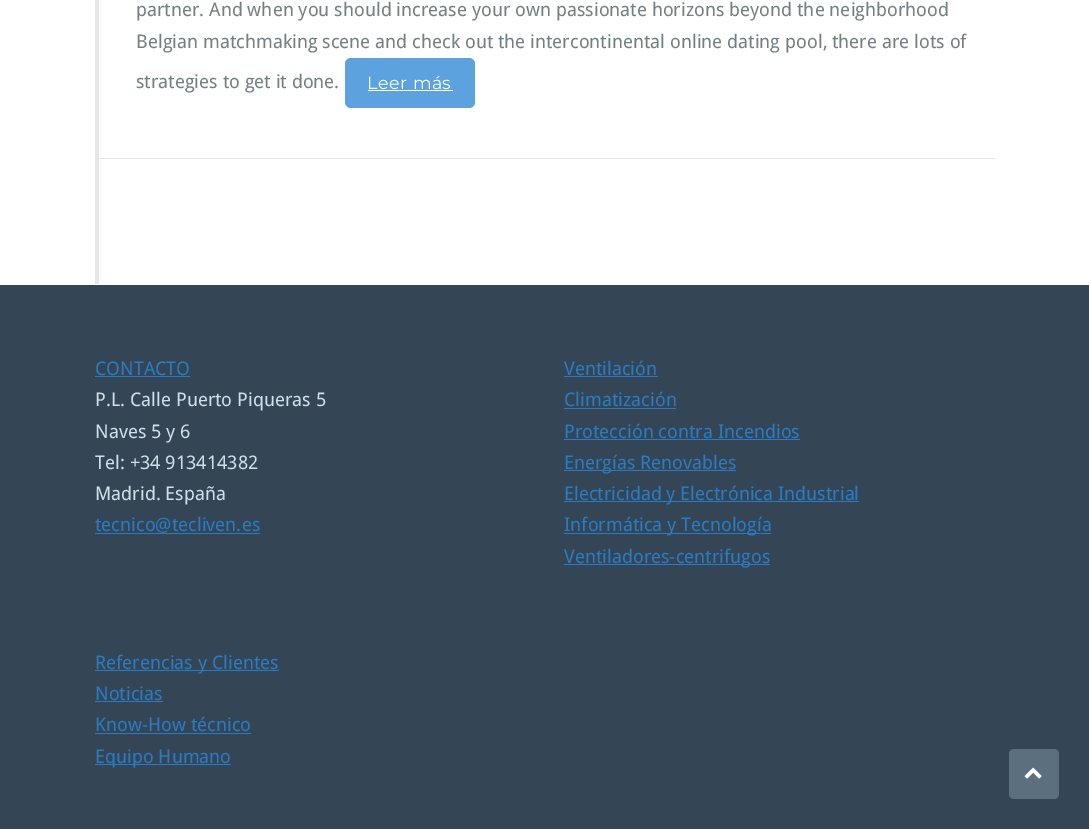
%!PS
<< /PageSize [1089 829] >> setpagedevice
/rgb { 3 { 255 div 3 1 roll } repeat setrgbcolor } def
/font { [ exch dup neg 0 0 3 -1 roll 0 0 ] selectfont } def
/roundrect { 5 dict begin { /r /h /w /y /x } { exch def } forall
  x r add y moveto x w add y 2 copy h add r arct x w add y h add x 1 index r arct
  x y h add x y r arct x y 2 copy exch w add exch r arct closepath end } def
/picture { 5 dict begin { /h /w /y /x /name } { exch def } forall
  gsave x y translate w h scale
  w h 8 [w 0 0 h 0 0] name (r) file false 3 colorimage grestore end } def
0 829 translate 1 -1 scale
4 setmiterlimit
255 255 255 rgb
0 0 1089 829 rectfill
228 232 234 rgb
95 0 4 284 rectfill
99 158 896 1 rectfill
92 162 223 rgb
345 58 130 50 6 roundrect fill
[
  [368 90 85 1 255 255 255]
  [0 285 1089 544 52 70 86]
  [95 376 95 1 42 123 193]
  [95 533 165 1 42 123 193]
  [564 376 94 1 42 123 193]
  [564 408 112 1 42 123 193]
  [564 439 236 1 42 123 193]
  [564 470 172 1 42 123 193]
  [564 501 295 1 42 123 193]
  [564 533 207 1 42 123 193]
  [564 564 206 1 42 123 193]
  [95 670 184 1 42 123 193]
  [95 701 68 1 42 123 193]
  [95 733 156 1 42 123 193]
  [95 764 136 1 42 123 193]
] { aload pop rgb rectfill } forall
91 111 127 rgb
1009 749 50 50 5 roundrect fill
(img/1.rgb) 1024 767 18 12 picture
/DroidSans-Regular 18.75 font
115 127 133 rgb
[
  [(partner. And when you should increase your own passionate horizons beyond the neighborhood) 136 16]
  [(Belgian matchmaking scene and check out the intercontinental online dating pool, there are lots of) 136 48]
  [(strategies to get it done.) 136 88]
] { aload pop moveto show } forall
/Montserrat-Regular 17.5 font
255 255 255 rgb
367 89 moveto 0.5 0 (Leer más) ashow
/DroidSans-Regular 18.75 font
42 123 193 rgb
95 375 moveto (CONTACTO) show
211 222 232 rgb
[
  [(P.L. Calle Puerto Piqueras 5) 95 406]
  [(Naves 5 y 6) 95 438]
  [(Tel: +34 913414382) 95 469]
  [(Madrid. España) 95 500]
] { aload pop moveto show } forall
42 123 193 rgb
[
  [(tecnico@tecliven.es) 95 531]
  [(Ventilación) 564 375]
  [(Climatización) 564 406]
  [(Protección contra Incendios) 564 438]
  [(Energías Renovables) 564 469]
  [(Electricidad y Electrónica Industrial) 564 500]
  [(Informática y Tecnología) 564 531]
  [(Ventiladores-centrifugos) 564 563]
  [(Referencias y Clientes) 95 669]
  [(Noticias) 95 700]
  [(Know-How técnico) 95 731]
  [(Equipo Humano) 95 763]
] { aload pop moveto show } forall
showpage
